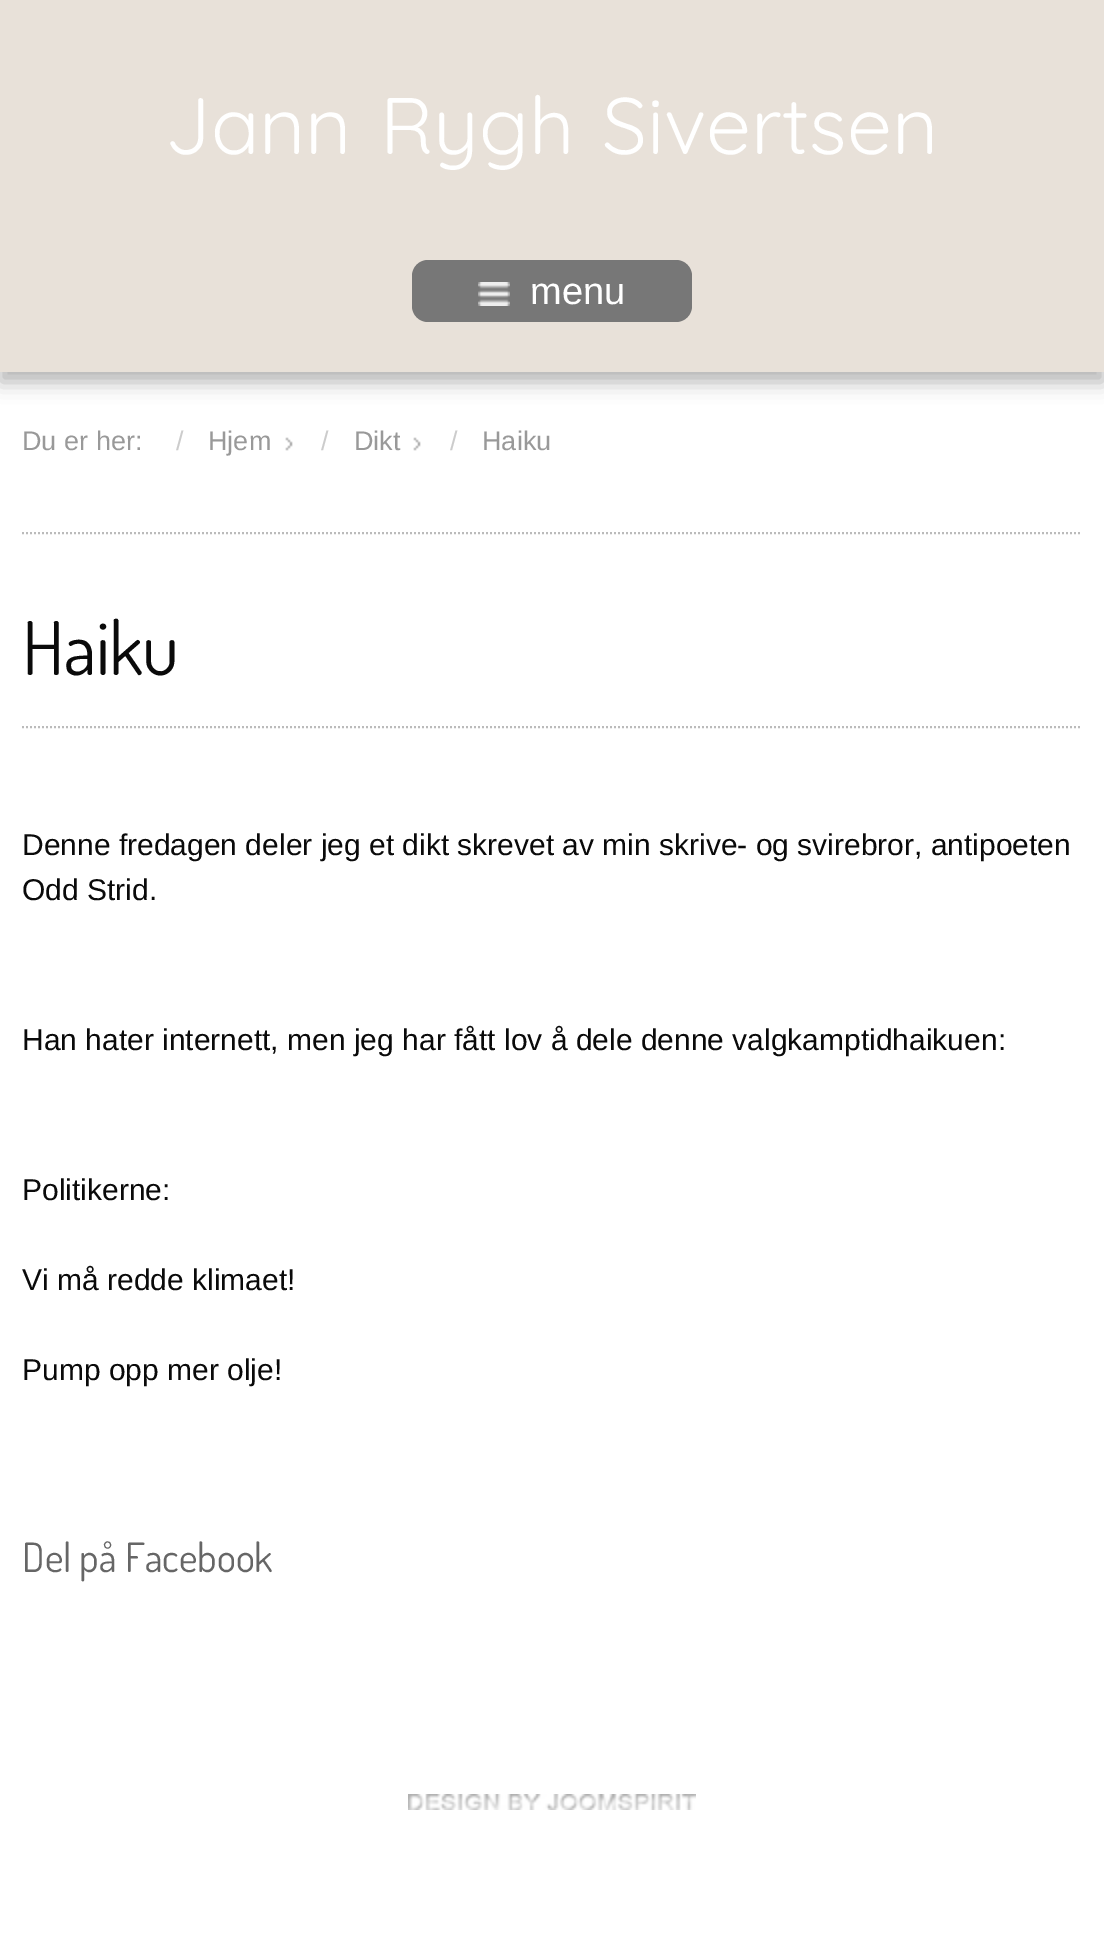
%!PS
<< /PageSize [1104 1938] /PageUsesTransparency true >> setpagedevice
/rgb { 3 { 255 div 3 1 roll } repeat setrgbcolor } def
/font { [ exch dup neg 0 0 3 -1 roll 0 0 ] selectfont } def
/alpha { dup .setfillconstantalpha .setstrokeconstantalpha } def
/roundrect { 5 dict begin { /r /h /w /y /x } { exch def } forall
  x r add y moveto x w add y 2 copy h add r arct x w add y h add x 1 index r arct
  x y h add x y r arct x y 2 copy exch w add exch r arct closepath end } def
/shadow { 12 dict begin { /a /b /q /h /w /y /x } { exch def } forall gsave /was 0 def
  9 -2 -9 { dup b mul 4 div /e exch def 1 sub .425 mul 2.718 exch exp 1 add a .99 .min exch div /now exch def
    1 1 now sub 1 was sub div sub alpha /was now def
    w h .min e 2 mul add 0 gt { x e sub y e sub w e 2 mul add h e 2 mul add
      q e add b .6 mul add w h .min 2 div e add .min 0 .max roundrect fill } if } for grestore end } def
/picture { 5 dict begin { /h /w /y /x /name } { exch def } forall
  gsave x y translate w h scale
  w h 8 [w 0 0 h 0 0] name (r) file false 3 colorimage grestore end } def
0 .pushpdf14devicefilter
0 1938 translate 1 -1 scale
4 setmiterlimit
255 255 255 rgb
0 0 1104 1938 rectfill
0 0 0 rgb
0 10 1104 372 0 10 0.3 shadow
232 225 217 rgb
0 0 1104 372 rectfill
119 119 119 rgb
412 260 280 62 16 roundrect fill
(img/1.rgb) 478 282 32 24 picture
(img/2.rgb) 285 437 8 14 picture
(img/2.rgb) 413 437 8 14 picture
187 187 187 rgb
2 setlinewidth
[2 2] 0 setdash
22 533 moveto 1082 533 lineto stroke
22 727 moveto 1082 727 lineto stroke
(img/3.rgb) 408 1794 288 16 picture
/Quicksand-Light 80 font
255 255 255 rgb
165 154 moveto 6 0 32 (Jann Rygh Sivertsen) widthshow
/LiberationSans-Regular 38 font
530 304 moveto (menu) show
/LiberationSans-Regular 27 font
153 153 153 rgb
22 450 moveto (Du er her:) show
204 204 204 rgb
176 450 moveto (/) show
153 153 153 rgb
208 450 moveto (Hjem) show
204 204 204 rgb
321 450 moveto (/) show
153 153 153 rgb
354 450 moveto (Dikt) show
204 204 204 rgb
450 450 moveto (/) show
153 153 153 rgb
482 450 moveto (Haiku) show
/Dosis-Regular 74 font
10 10 10 rgb
22 675 moveto -0.5 0 (Haiku) ashow
/LiberationSans-Regular 30 font
[
  [(Denne fredagen deler jeg et dikt skrevet av min skrive- og svirebror, antipoeten) 22 855]
  [(Odd Strid.) 22 900]
  [(Han hater internett, men jeg har fått lov å dele denne valgkamptidhaikuen:) 22 1050]
  [(Politikerne:) 22 1200]
  [(Vi må redde klimaet!) 22 1290]
  [(Pump opp mer olje!) 22 1380]
] { aload pop moveto show } forall
/Dosis-Regular 40.25 font
102 102 102 rgb
22 1572 moveto (Del på Facebook) show
.poppdf14devicefilter showpage
